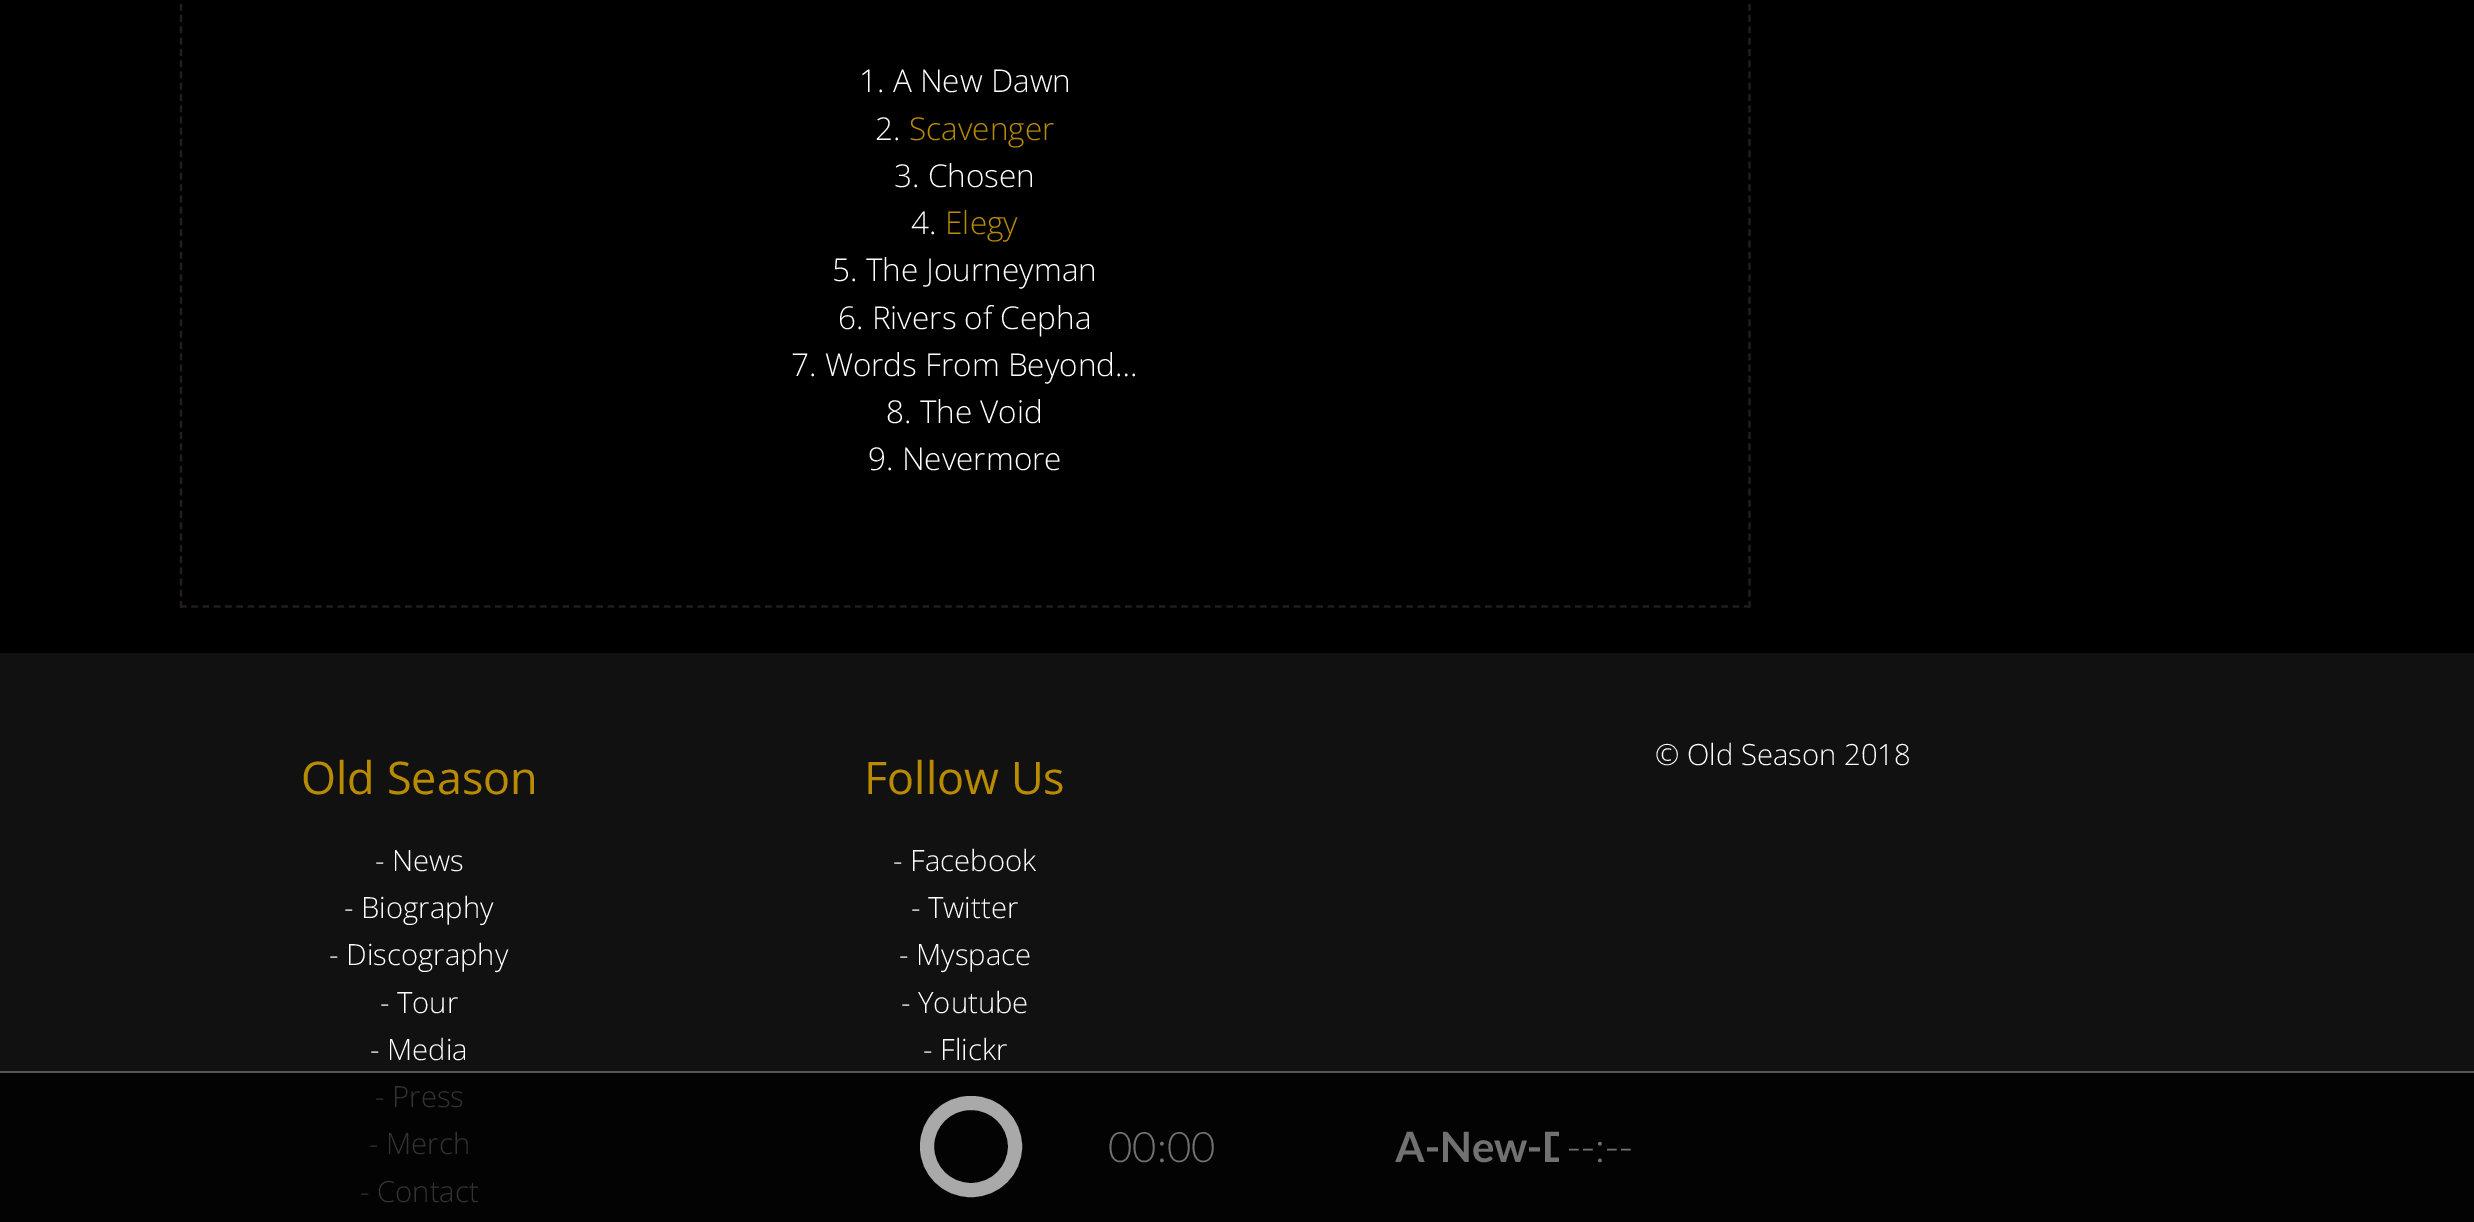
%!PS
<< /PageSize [2474 1222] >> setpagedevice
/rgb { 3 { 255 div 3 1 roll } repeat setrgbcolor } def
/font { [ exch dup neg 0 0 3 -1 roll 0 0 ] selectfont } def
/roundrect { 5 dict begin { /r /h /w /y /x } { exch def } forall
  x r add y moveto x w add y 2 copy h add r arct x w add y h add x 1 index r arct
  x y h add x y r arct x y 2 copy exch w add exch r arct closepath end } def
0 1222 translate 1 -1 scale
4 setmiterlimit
0 0 0 rgb
0 0 2474 1222 rectfill
35 30 25 rgb
2.2 setlinewidth
[6.75 4.52] 0 setdash
1749.5 -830 moveto 1749.5 607.5 lineto stroke
[6.75 4.5] 0 setdash
180 606.5 moveto 1750.5 606.5 lineto stroke
[6.75 4.52] 0 setdash
181 -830 moveto 181 607.5 lineto stroke
[
  [0 653 2474 418 17 17 17]
  [0 1073 2474 149 3 3 3]
  [0 1071 2474 2 85 85 85]
] { aload pop rgb rectfill } forall
169 169 169 rgb
14 setlinewidth
[] 0 setdash
927 1103 88 87 43.5 roundrect stroke
/OpenSans-Light 31.5 font
255 255 255 rgb
859 92 moveto (1. A New Dawn) show
875 140 moveto (2.) show
185 139 3 rgb
909 140 moveto (Scavenger) show
255 255 255 rgb
894 187 moveto (3. Chosen) show
911 234 moveto (4.) show
185 139 3 rgb
945 234 moveto (Elegy) show
255 255 255 rgb
[
  [(5. The Journeyman) 832 281]
  [(6. Rivers of Cepha) 838 329]
  [(7. Words From Beyond…) 791 376]
  [(8. The Void) 886 423]
  [(9. Nevermore) 868 470]
] { aload pop moveto show } forall
/OpenSans-Light 29.25 font
1655 765 moveto (© Old Season 2018) show
/OpenSans-Regular 45 font
185 139 3 rgb
301 794 moveto (Old Season) show
/OpenSans-Light 29.25 font
255 255 255 rgb
[
  [(- News) 375 871]
  [(- Biography) 344 918]
  [(- Discography) 329 965]
  [(- Tour) 380 1013]
  [(- Media) 370 1060]
] { aload pop moveto show } forall
51 51 51 rgb
[
  [(- Press) 375 1107]
  [(- Merch) 369 1154]
  [(- Contact) 360 1202]
] { aload pop moveto show } forall
/OpenSans-Regular 45 font
185 139 3 rgb
864 794 moveto (Follow Us) show
/OpenSans-Light 29.25 font
255 255 255 rgb
[
  [(- Facebook) 893 871]
  [(- Twitter) 911 918]
  [(- Myspace) 899 965]
  [(- Youtube) 901 1013]
  [(- Flickr) 923 1060]
] { aload pop moveto show } forall
/Lato-Light 42 font
113 113 113 rgb
1108 1162 moveto (00:00) show
gsave
1224 1125 335 45 rectclip
/Lato-Bold 42 font
1395 1162 moveto (A-New-D) show
grestore
1567 1162 moveto (--:--) show
showpage
